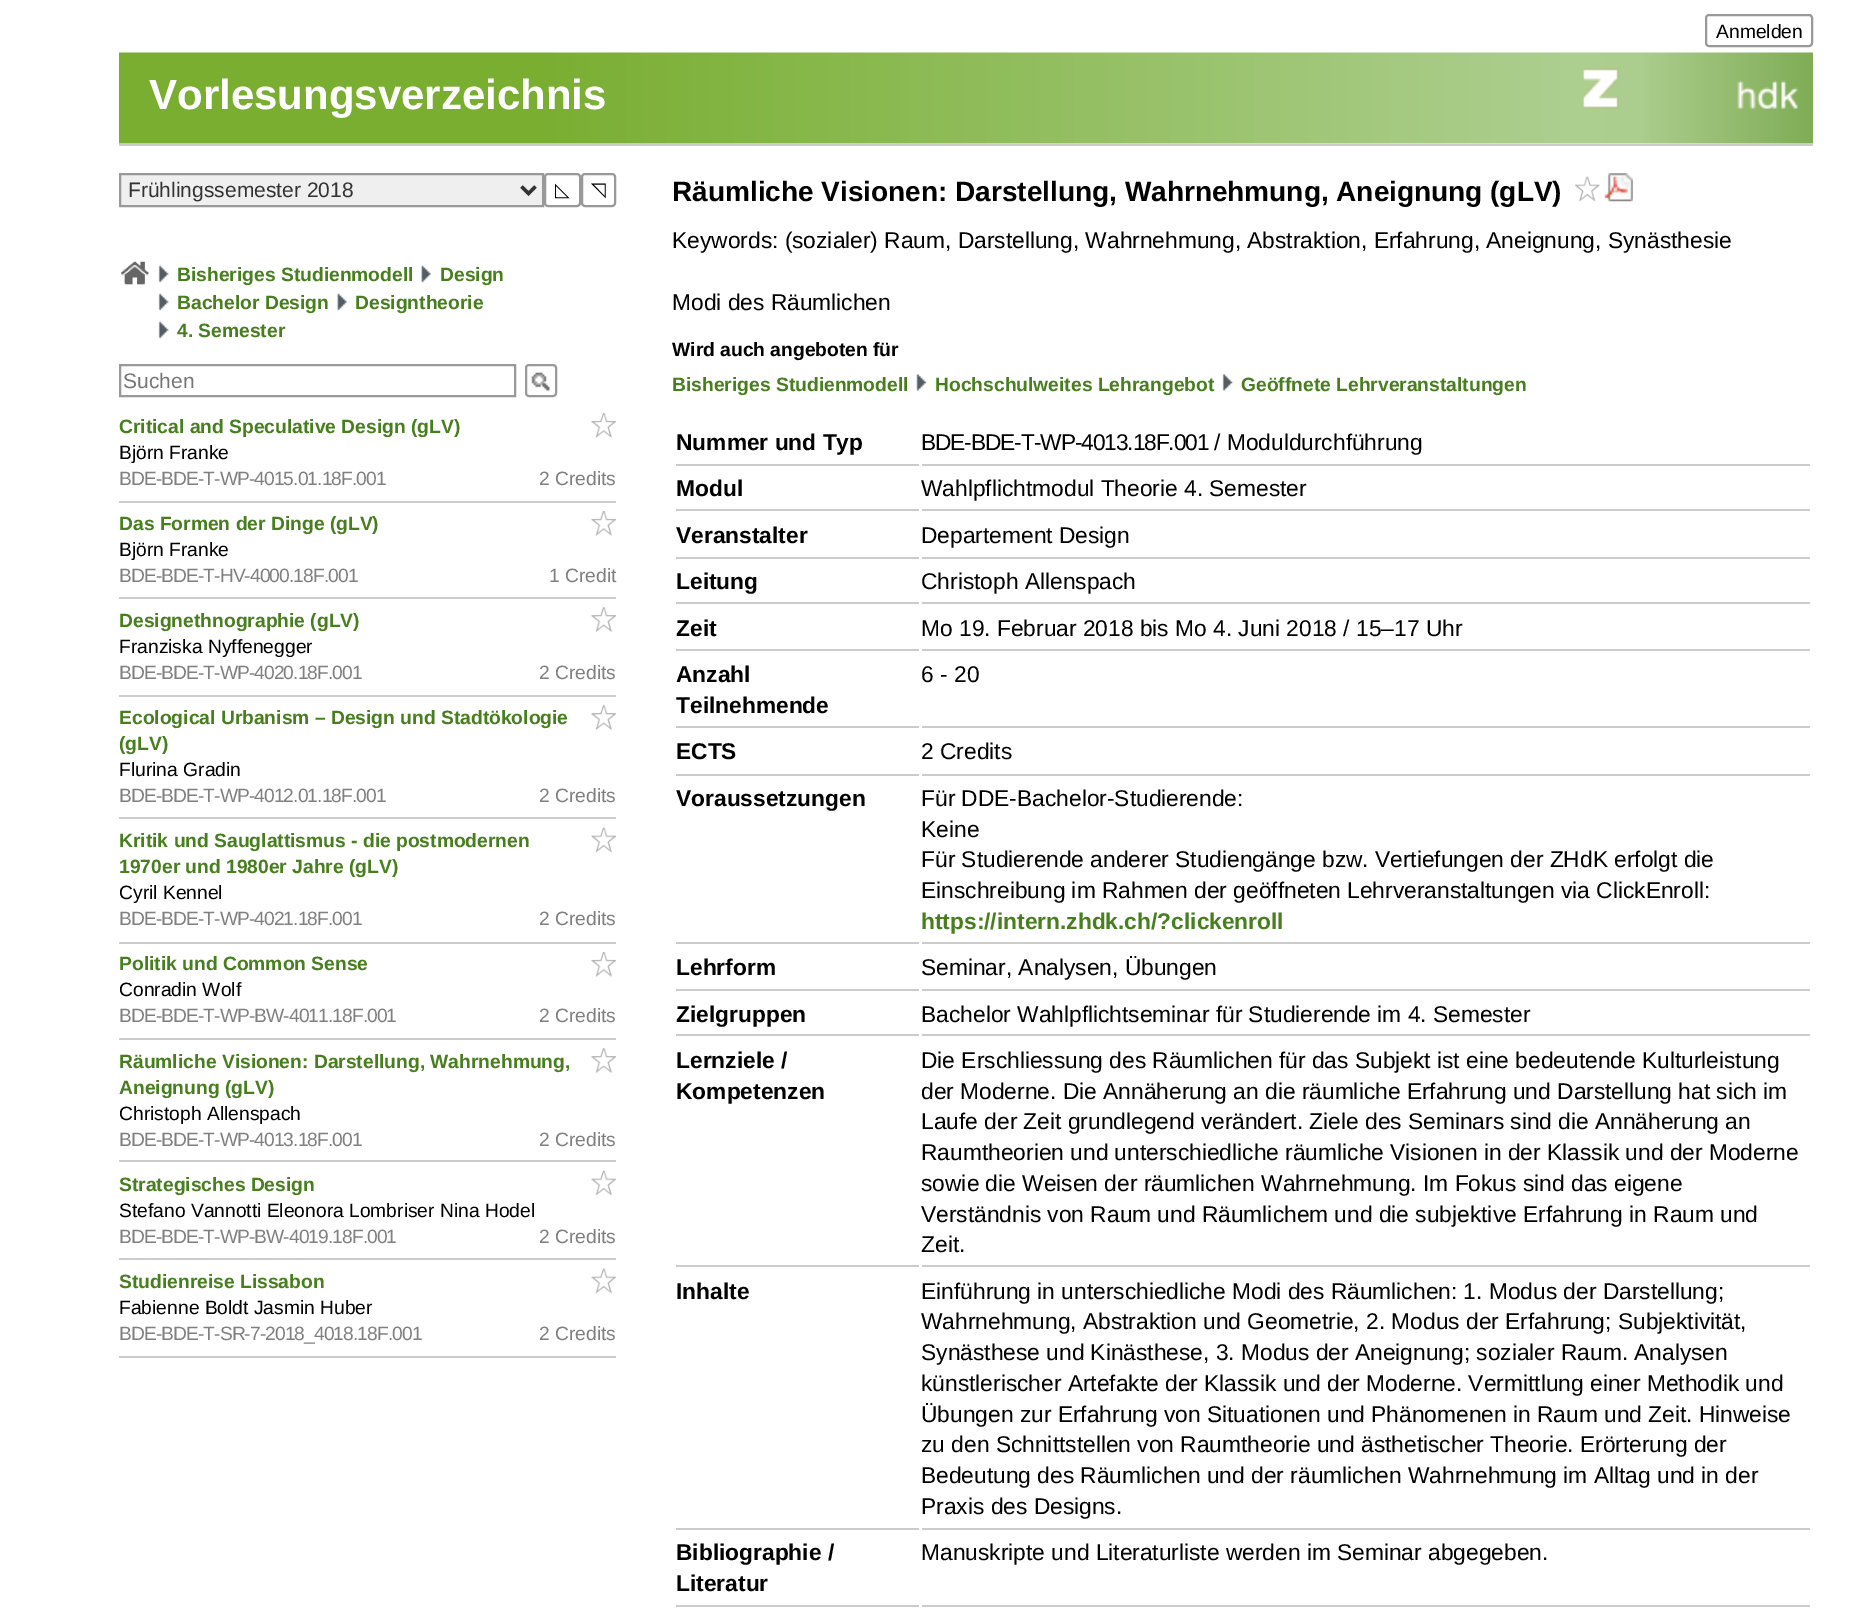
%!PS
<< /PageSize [1855 1623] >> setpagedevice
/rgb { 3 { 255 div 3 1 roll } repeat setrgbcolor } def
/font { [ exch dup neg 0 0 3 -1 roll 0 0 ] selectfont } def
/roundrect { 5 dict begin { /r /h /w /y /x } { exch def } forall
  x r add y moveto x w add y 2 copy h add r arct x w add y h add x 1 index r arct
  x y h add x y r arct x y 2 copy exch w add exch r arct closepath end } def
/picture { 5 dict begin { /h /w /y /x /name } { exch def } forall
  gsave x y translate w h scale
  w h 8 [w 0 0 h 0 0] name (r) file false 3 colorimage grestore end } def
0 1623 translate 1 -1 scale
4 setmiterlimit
255 255 255 rgb
0 0 1855 1623 rectfill
153 153 153 rgb
2 setlinewidth
1706 15 106 31 3 roundrect stroke
(img/1.rgb) 119 52 1694 92 picture
(img/2.rgb) 1583 68 215 41 picture
204 204 204 rgb
119 144 1694 2 rectfill
239 239 239 rgb
120 174 moveto 543 174 lineto 543 206 lineto 120 206 lineto closepath gsave fill grestore
153 153 153 rgb
stroke
51 51 51 rgb
3.5 setlinewidth
521.5 186.5 moveto 528.5 193.5 lineto 535.5 186.5 lineto stroke
153 153 153 rgb
2 setlinewidth
545 174 35 32 3 roundrect stroke
582 174 33 32 3 roundrect stroke
(img/3.rgb) 121 261 29 24 picture
(img/4.rgb) 158 265 11 18 picture
(img/5.rgb) 421 265 10 18 picture
(img/4.rgb) 158 293 11 18 picture
(img/5.rgb) 337 293 10 18 picture
(img/4.rgb) 158 321 11 18 picture
120 365 395 31 rectstroke
(img/6.rgb) 531 372 19 19 picture
526 365 30 31 3 roundrect stroke
204 204 204 rgb
119 501 497 2 rectfill
(img/7.rgb) 591 413 25 25 picture
119 597 497 2 rectfill
(img/7.rgb) 591 511 25 25 picture
119 695 497 2 rectfill
(img/8.rgb) 591 607 25 25 picture
119 817 497 2 rectfill
(img/8.rgb) 591 705 25 25 picture
119 942 497 2 rectfill
(img/9.rgb) 591 827 25 26 picture
119 1038 497 2 rectfill
(img/7.rgb) 591 952 25 25 picture
119 1160 497 2 rectfill
(img/8.rgb) 591 1048 25 25 picture
119 1258 497 2 rectfill
(img/9.rgb) 591 1170 25 26 picture
119 1356 497 2 rectfill
(img/9.rgb) 591 1268 25 26 picture
(img/10.rgb) 1575 176 25 26 picture
(img/11.rgb) 1604 173 29 29 picture
(img/12.rgb) 916 374 11 17 picture
(img/13.rgb) 1222 374 11 17 picture
[
  [676 464 243 2 204 204 204]
  [922 464 888 2 204 204 204]
  [676 509 243 2 204 204 204]
  [922 509 888 2 204 204 204]
  [676 557 243 2 204 204 204]
  [922 557 888 2 204 204 204]
  [676 602 243 2 204 204 204]
  [922 602 888 2 204 204 204]
  [676 649 243 2 204 204 204]
  [922 649 888 2 204 204 204]
  [676 726 243 2 204 204 204]
  [922 726 888 2 204 204 204]
  [676 774 243 2 204 204 204]
  [922 774 888 2 204 204 204]
  [676 942 243 2 204 204 204]
  [922 942 888 2 204 204 204]
  [676 989 243 2 204 204 204]
  [922 989 888 2 204 204 204]
  [676 1034 243 2 204 204 204]
  [922 1034 888 2 204 204 204]
  [676 1265 243 2 204 204 204]
  [922 1265 888 2 204 204 204]
  [676 1528 243 2 204 204 204]
  [922 1528 888 2 204 204 204]
  [676 1605 243 2 204 204 204]
  [922 1605 888 2 204 204 204]
] { aload pop rgb rectfill } forall
/LiberationSans-Regular 19.25 font
0 0 0 rgb
1716 38 moveto (Anmelden) show
/LiberationSans-Bold 42 font
255 255 255 rgb
149 109 moveto (Vorlesungsverzeichnis) show
/LiberationSans-Regular 21 font
51 51 51 rgb
128 197 moveto (Frühlingssemester 2018) show
/DejaVuSans-Regular 19.25 font
0 0 0 rgb
555 196 moveto (◺) show
591 196 moveto (◹) show
/LiberationSans-Bold 19.25 font
71 126 30 rgb
[
  [(Bisheriges Studienmodell) 177 281]
  [(Design) 440 281]
  [(Bachelor Design) 177 309]
  [(Designtheorie) 355 309]
  [(4. Semester) 177 337]
] { aload pop moveto show } forall
/LiberationSans-Regular 21 font
117 117 117 rgb
123 388 moveto (Suchen) show
/LiberationSans-Bold 19.25 font
71 126 30 rgb
119 433 moveto (Critical and Speculative Design \(gLV\)) show
/LiberationSans-Regular 19.25 font
0 0 0 rgb
119 459 moveto (Björn Franke) show
128 128 128 rgb
119 485 moveto -0.95 0 (BDE-BDE-T-WP-4015.01.18F.001) ashow
539 485 moveto (2 Credits) show
/LiberationSans-Bold 19.25 font
71 126 30 rgb
119 530 moveto (Das Formen der Dinge \(gLV\)) show
/LiberationSans-Regular 19.25 font
0 0 0 rgb
119 556 moveto (Björn Franke) show
128 128 128 rgb
119 582 moveto -0.95 0 (BDE-BDE-T-HV-4000.18F.001) ashow
549 582 moveto (1 Credit) show
/LiberationSans-Bold 19.25 font
71 126 30 rgb
119 627 moveto (Designethnographie \(gLV\)) show
/LiberationSans-Regular 19.25 font
0 0 0 rgb
119 653 moveto (Franziska Nyffenegger) show
128 128 128 rgb
119 679 moveto -0.95 0 (BDE-BDE-T-WP-4020.18F.001) ashow
539 679 moveto (2 Credits) show
/LiberationSans-Bold 19.25 font
71 126 30 rgb
119 724 moveto (Ecological Urbanism – Design und Stadtökologie) show
119 750 moveto (\(gLV\)) show
/LiberationSans-Regular 19.25 font
0 0 0 rgb
119 776 moveto (Flurina Gradin) show
128 128 128 rgb
119 802 moveto -0.95 0 (BDE-BDE-T-WP-4012.01.18F.001) ashow
539 802 moveto (2 Credits) show
/LiberationSans-Bold 19.25 font
71 126 30 rgb
119 847 moveto (Kritik und Sauglattismus - die postmodernen) show
119 873 moveto (1970er und 1980er Jahre \(gLV\)) show
/LiberationSans-Regular 19.25 font
0 0 0 rgb
119 899 moveto (Cyril Kennel) show
128 128 128 rgb
119 925 moveto -0.95 0 (BDE-BDE-T-WP-4021.18F.001) ashow
539 925 moveto (2 Credits) show
/LiberationSans-Bold 19.25 font
71 126 30 rgb
119 970 moveto (Politik und Common Sense) show
/LiberationSans-Regular 19.25 font
0 0 0 rgb
119 996 moveto (Conradin Wolf) show
128 128 128 rgb
119 1022 moveto -0.95 0 (BDE-BDE-T-WP-BW-4011.18F.001) ashow
539 1022 moveto (2 Credits) show
/LiberationSans-Bold 19.25 font
71 126 30 rgb
119 1068 moveto (Räumliche Visionen: Darstellung, Wahrnehmung,) show
119 1094 moveto (Aneignung \(gLV\)) show
/LiberationSans-Regular 19.25 font
0 0 0 rgb
119 1120 moveto (Christoph Allenspach) show
128 128 128 rgb
119 1146 moveto -0.95 0 (BDE-BDE-T-WP-4013.18F.001) ashow
539 1146 moveto (2 Credits) show
/LiberationSans-Bold 19.25 font
71 126 30 rgb
119 1191 moveto (Strategisches Design) show
/LiberationSans-Regular 19.25 font
0 0 0 rgb
119 1217 moveto (Stefano Vannotti Eleonora Lombriser Nina Hodel) show
128 128 128 rgb
119 1243 moveto -0.95 0 (BDE-BDE-T-WP-BW-4019.18F.001) ashow
539 1243 moveto (2 Credits) show
/LiberationSans-Bold 19.25 font
71 126 30 rgb
119 1288 moveto (Studienreise Lissabon) show
/LiberationSans-Regular 19.25 font
0 0 0 rgb
119 1314 moveto (Fabienne Boldt Jasmin Huber) show
128 128 128 rgb
119 1340 moveto -0.95 0 (BDE-BDE-T-SR-7-2018_4018.18F.001) ashow
539 1340 moveto (2 Credits) show
/LiberationSans-Bold 28 font
0 0 0 rgb
672 201 moveto (Räumliche Visionen: Darstellung, Wahrnehmung, Aneignung \(gLV\)) show
/LiberationSans-Regular 22.75 font
672 248 moveto (Keywords: \(sozialer\) Raum, Darstellung, Wahrnehmung, Abstraktion, Erfahrung, Aneignung, Synästhesie) show
672 310 moveto (Modi des Räumlichen) show
/LiberationSans-Bold 19.25 font
672 356 moveto (Wird auch angeboten für) show
71 126 30 rgb
[
  [(Bisheriges Studienmodell) 672 391]
  [(Hochschulweites Lehrangebot) 935 391]
  [(Geöffnete Lehrveranstaltungen) 1241 391]
] { aload pop moveto show } forall
/LiberationSans-Bold 22.75 font
0 0 0 rgb
676 450 moveto (Nummer und Typ) show
/LiberationSans-Regular 22.75 font
921 450 moveto -1.1 0 (BDE-BDE-T-WP-4013.18F.001) ashow
1214 450 moveto (/ Moduldurchführung) show
/LiberationSans-Bold 22.75 font
676 496 moveto (Modul) show
/LiberationSans-Regular 22.75 font
921 496 moveto (Wahlpflichtmodul Theorie 4. Semester) show
/LiberationSans-Bold 22.75 font
676 543 moveto (Veranstalter) show
/LiberationSans-Regular 22.75 font
921 543 moveto (Departement Design) show
/LiberationSans-Bold 22.75 font
676 589 moveto (Leitung) show
/LiberationSans-Regular 22.75 font
921 589 moveto (Christoph Allenspach) show
/LiberationSans-Bold 22.75 font
676 636 moveto (Zeit) show
/LiberationSans-Regular 22.75 font
921 636 moveto (Mo 19. Februar 2018 bis Mo 4. Juni 2018 / 15–17 Uhr) show
/LiberationSans-Bold 22.75 font
676 682 moveto (Anzahl) show
676 713 moveto (Teilnehmende) show
/LiberationSans-Regular 22.75 font
921 682 moveto (6 - 20) show
/LiberationSans-Bold 22.75 font
676 759 moveto (ECTS) show
/LiberationSans-Regular 22.75 font
921 759 moveto (2 Credits) show
/LiberationSans-Bold 22.75 font
676 806 moveto (Voraussetzungen) show
/LiberationSans-Regular 22.75 font
[
  [(Für DDE-Bachelor-Studierende:) 921 806]
  [(Keine) 921 837]
  [(Für Studierende anderer Studiengänge bzw. Vertiefungen der ZHdK erfolgt die) 921 867]
  [(Einschreibung im Rahmen der geöffneten Lehrveranstaltungen via ClickEnroll:) 921 898]
] { aload pop moveto show } forall
/LiberationSans-Bold 22.75 font
71 126 30 rgb
921 929 moveto (https://intern.zhdk.ch/?clickenroll) show
0 0 0 rgb
676 975 moveto (Lehrform) show
/LiberationSans-Regular 22.75 font
921 975 moveto (Seminar, Analysen, Übungen) show
/LiberationSans-Bold 22.75 font
676 1022 moveto (Zielgruppen) show
/LiberationSans-Regular 22.75 font
921 1022 moveto (Bachelor Wahlpflichtseminar für Studierende im 4. Semester) show
/LiberationSans-Bold 22.75 font
676 1068 moveto (Lernziele /) show
676 1099 moveto (Kompetenzen) show
/LiberationSans-Regular 22.75 font
[
  [(Die Erschliessung des Räumlichen für das Subjekt ist eine bedeutende Kulturleistung) 921 1068]
  [(der Moderne. Die Annäherung an die räumliche Erfahrung und Darstellung hat sich im) 921 1099]
  [(Laufe der Zeit grundlegend verändert. Ziele des Seminars sind die Annäherung an) 921 1129]
  [(Raumtheorien und unterschiedliche räumliche Visionen in der Klassik und der Moderne) 921 1160]
  [(sowie die Weisen der räumlichen Wahrnehmung. Im Fokus sind das eigene) 921 1191]
  [(Verständnis von Raum und Räumlichem und die subjektive Erfahrung in Raum und) 921 1222]
  [(Zeit.) 921 1252]
] { aload pop moveto show } forall
/LiberationSans-Bold 22.75 font
676 1299 moveto (Inhalte) show
/LiberationSans-Regular 22.75 font
[
  [(Einführung in unterschiedliche Modi des Räumlichen: 1. Modus der Darstellung;) 921 1299]
  [(Wahrnehmung, Abstraktion und Geometrie, 2. Modus der Erfahrung; Subjektivität,) 921 1329]
  [(Synästhese und Kinästhese, 3. Modus der Aneignung; sozialer Raum. Analysen) 921 1360]
  [(künstlerischer Artefakte der Klassik und der Moderne. Vermittlung einer Methodik und) 921 1391]
  [(Übungen zur Erfahrung von Situationen und Phänomenen in Raum und Zeit. Hinweise) 921 1422]
  [(zu den Schnittstellen von Raumtheorie und ästhetischer Theorie. Erörterung der) 921 1452]
  [(Bedeutung des Räumlichen und der räumlichen Wahrnehmung im Alltag und in der) 921 1483]
  [(Praxis des Designs.) 921 1514]
] { aload pop moveto show } forall
/LiberationSans-Bold 22.75 font
676 1560 moveto (Bibliographie /) show
676 1591 moveto (Literatur) show
/LiberationSans-Regular 22.75 font
921 1560 moveto (Manuskripte und Literaturliste werden im Seminar abgegeben.) show
showpage
